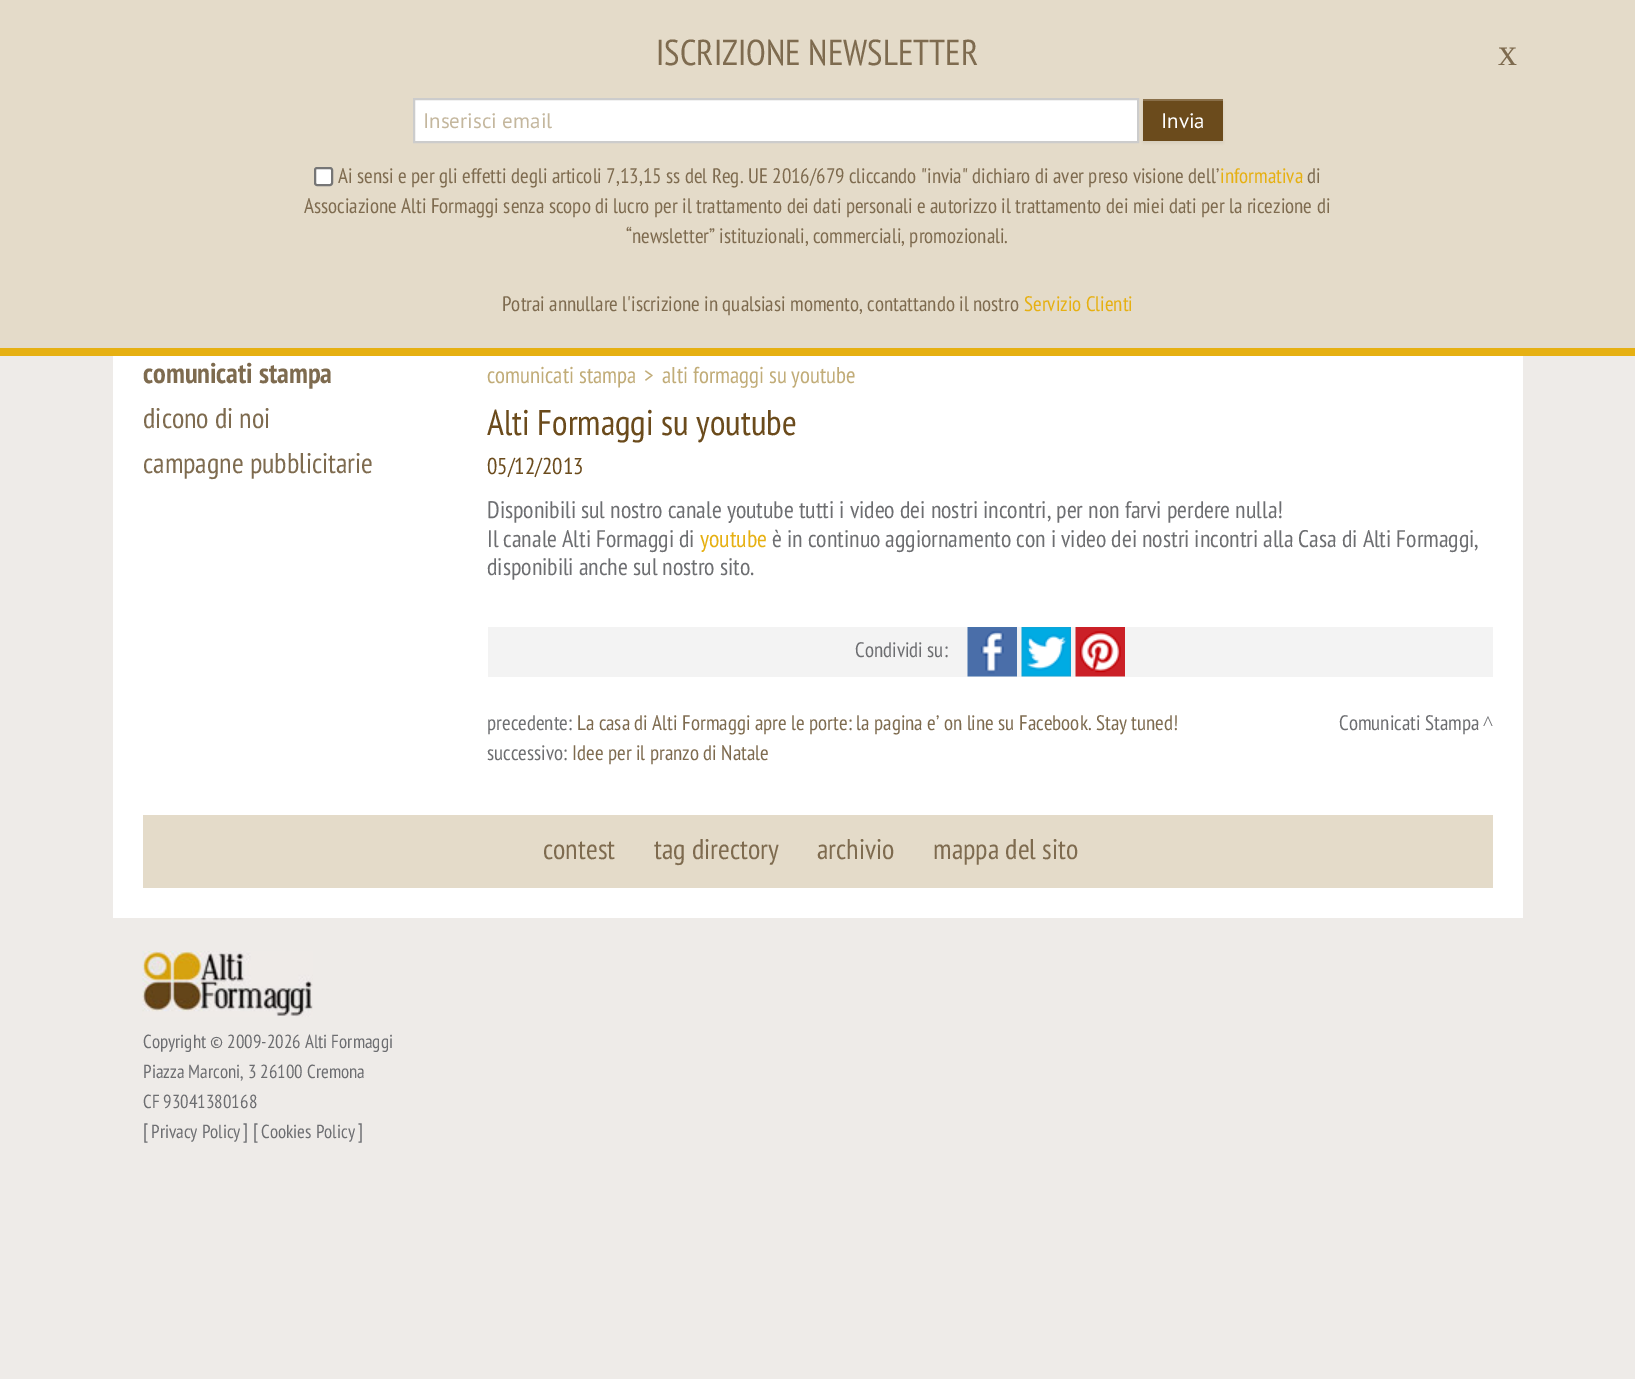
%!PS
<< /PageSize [1635 1379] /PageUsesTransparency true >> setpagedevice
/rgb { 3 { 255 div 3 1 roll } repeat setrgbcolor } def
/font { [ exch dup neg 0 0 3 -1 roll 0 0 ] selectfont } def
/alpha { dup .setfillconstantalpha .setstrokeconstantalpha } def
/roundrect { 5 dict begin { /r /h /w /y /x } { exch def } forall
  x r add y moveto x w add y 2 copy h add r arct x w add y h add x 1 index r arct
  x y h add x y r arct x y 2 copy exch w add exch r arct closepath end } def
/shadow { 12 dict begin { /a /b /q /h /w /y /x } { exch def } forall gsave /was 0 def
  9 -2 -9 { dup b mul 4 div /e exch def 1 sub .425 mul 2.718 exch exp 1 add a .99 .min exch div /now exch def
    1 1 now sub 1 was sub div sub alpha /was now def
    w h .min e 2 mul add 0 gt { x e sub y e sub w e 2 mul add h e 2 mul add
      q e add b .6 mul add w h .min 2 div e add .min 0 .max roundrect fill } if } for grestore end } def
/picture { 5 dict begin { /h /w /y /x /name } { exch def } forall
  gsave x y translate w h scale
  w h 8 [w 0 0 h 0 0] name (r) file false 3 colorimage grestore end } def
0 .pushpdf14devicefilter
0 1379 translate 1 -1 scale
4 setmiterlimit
238 235 232 rgb
0 0 1635 1379 rectfill
228 219 201 rgb
0 0 1635 348 rectfill
230 176 18 rgb
0 348 1635 8 rectfill
255 255 255 rgb
414 99 moveto 1138 99 lineto 1138 142 lineto 414 142 lineto closepath gsave fill grestore
204 204 204 rgb
2 setlinewidth
stroke
0 0 0 rgb
1143 101 80 42 0 1.5 0.05 shadow
107 75 28 rgb
1143 101 80 40 rectfill
137 111 73 rgb
1143 99 80 2 rectfill
255 255 255 rgb
315 168 17 17 2 roundrect gsave fill grestore
118 118 118 rgb
stroke
(img/1.rgb) 142 951 171 66 picture
255 255 255 rgb
113 356 1410 562 rectfill
243 243 243 rgb
488 627 1005 50 rectfill
(img/2.rgb) 967 627 50 50 picture
(img/3.rgb) 1021 627 50 50 picture
(img/4.rgb) 1075 627 50 50 picture
228 219 201 rgb
143 815 1350 73 rectfill
/PTSansNarrow-Regular 36 font
126 107 79 rgb
656 65 moveto (ISCRIZIONE NEWSLETTER) show
/LiberationSerif-Regular 38 font
1498 65 moveto (x) show
/PTSans-Regular 21 font
196 183 158 rgb
423 128 moveto (Inserisci email) show
255 255 255 rgb
1161 128 moveto (Invia) show
/PTSansNarrow-Regular 21 font
126 107 79 rgb
338 183 moveto (Ai sensi e per gli effetti degli articoli 7,13,15 ss del Reg. UE 2016/679 cliccando "invia" dichiaro di aver preso visione dell’) show
230 176 18 rgb
1220 183 moveto (informativa) show
126 107 79 rgb
[
  [(di) 1307 183]
  [(Associazione Alti Formaggi senza scopo di lucro per il trattamento dei dati personali e autorizzo il trattamento dei miei dati per la ricezione di) 304 213]
  [(“newsletter” istituzionali, commerciali, promozionali.) 626 243]
  [(Potrai annullare l'iscrizione in qualsiasi momento, contattando il nostro) 502 311]
] { aload pop moveto show } forall
230 176 18 rgb
1024 311 moveto (Servizio Clienti) show
/PTSansNarrow-Regular 18.9 font
109 110 113 rgb
[
  [(Copyright © 2009-2026 Alti Formaggi) 143 1048]
  [(Piazza Marconi, 3 26100 Cremona) 143 1078]
  [(CF 93041380168) 143 1108]
] { aload pop moveto show } forall
/PTSansNarrow-Regular 21 font
143 1138 moveto ([) show
/PTSansNarrow-Regular 18.9 font
151 1138 moveto (Privacy Policy) show
/PTSansNarrow-Regular 21 font
243 1138 moveto (] [) show
/PTSansNarrow-Regular 18.9 font
261 1138 moveto (Cookies Policy) show
/PTSansNarrow-Regular 21 font
358 1138 moveto (]) show
/PTSansNarrow-Bold 28.5 font
126 107 79 rgb
143 383 moveto (comunicati stampa) show
/PTSansNarrow-Regular 28.5 font
143 428 moveto (dicono di noi) show
143 473 moveto (campagne pubblicitarie) show
/PTSansNarrow-Regular 23 font
193 172 120 rgb
[
  [(comunicati stampa) 487 383]
  [(>) 644 383]
  [(alti formaggi su youtube) 662 383]
] { aload pop moveto show } forall
/PTSansNarrow-Regular 35.75 font
107 75 28 rgb
487 435 moveto (Alti Formaggi su youtube) show
/PTSansNarrow-Regular 23 font
487 474 moveto (05/12/2013) show
/PTSansNarrow-Regular 24 font
109 110 113 rgb
487 518 moveto (Disponibili sul nostro canale youtube tutti i video dei nostri incontri, per non farvi perdere nulla!) show
487 547 moveto (Il canale Alti Formaggi di) show
230 176 18 rgb
700 547 moveto (youtube) show
109 110 113 rgb
772 547 moveto (è in continuo aggiornamento con i video dei nostri incontri alla Casa di Alti Formaggi,) show
487 575 moveto (disponibili anche sul nostro sito.) show
/PTSansNarrow-Regular 21 font
855 657 moveto (Condividi su:) show
487 730 moveto (precedente:) show
126 107 79 rgb
577 730 moveto (La casa di Alti Formaggi apre le porte: la pagina e’ on line su Facebook. Stay tuned!) show
109 110 113 rgb
487 760 moveto (successivo:) show
126 107 79 rgb
572 760 moveto (Idee per il pranzo di Natale) show
109 110 113 rgb
1339 730 moveto (Comunicati Stampa) show
/LiberationSerif-Regular 21 font
1483 730 moveto (^) show
/PTSansNarrow-Regular 28.5 font
126 107 79 rgb
[
  [(contest) 543 859]
  [(tag directory) 654 859]
  [(archivio) 817 859]
  [(mappa del sito) 933 859]
] { aload pop moveto show } forall
.poppdf14devicefilter showpage
